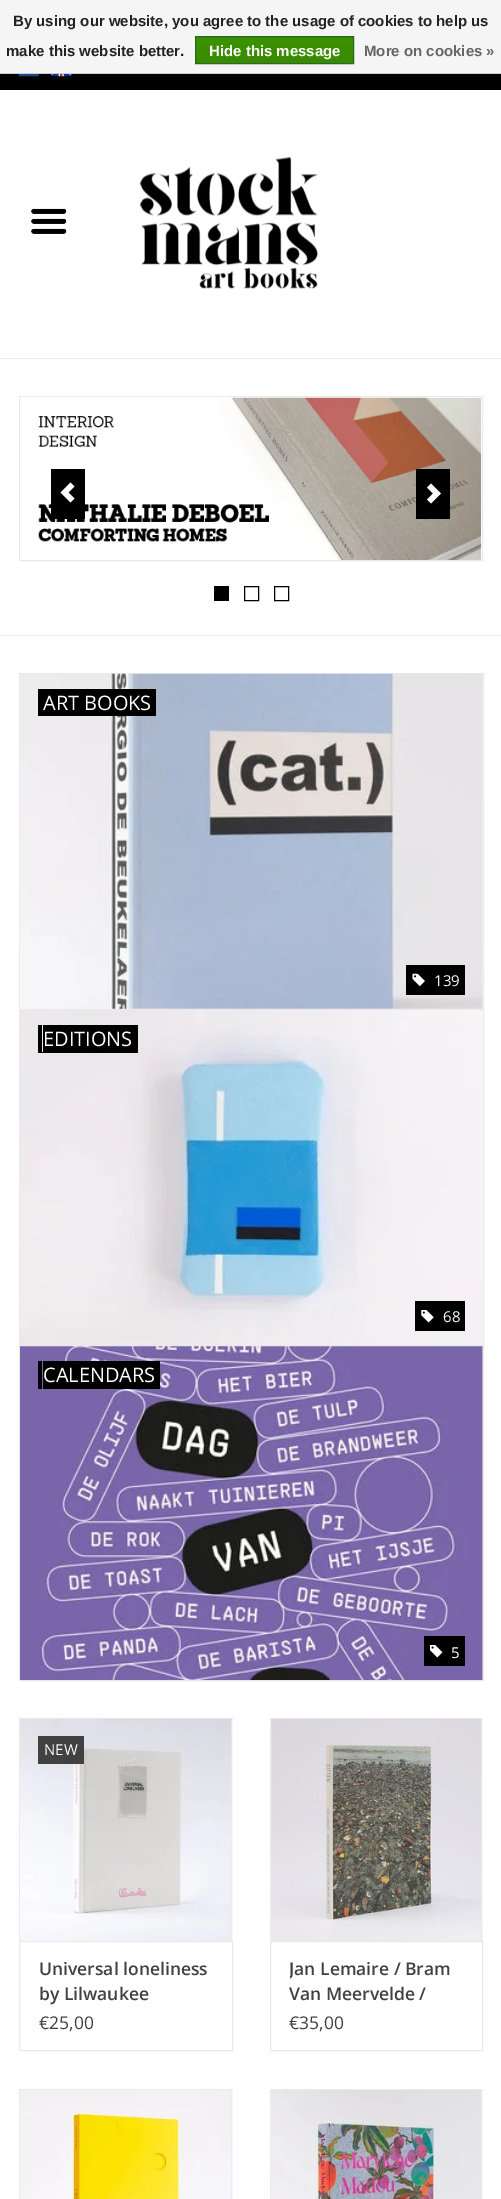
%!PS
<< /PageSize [501 2199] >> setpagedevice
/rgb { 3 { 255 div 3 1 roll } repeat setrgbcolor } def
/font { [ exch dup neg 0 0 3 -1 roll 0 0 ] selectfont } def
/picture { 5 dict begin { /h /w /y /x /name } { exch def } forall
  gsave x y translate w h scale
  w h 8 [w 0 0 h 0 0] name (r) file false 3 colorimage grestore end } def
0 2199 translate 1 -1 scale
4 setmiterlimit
255 255 255 rgb
0 0 501 2199 rectfill
245 245 245 rgb
0 0 501 73 rectfill
204 204 204 rgb
0 73 501 1 rectfill
gsave 195 37 moveto 354 37 lineto 354 38 lineto 195 38 lineto closepath clip newpath
<< /ShadingType 2 /ColorSpace /DeviceRGB /Coords [274 12 274 38] /Extend [true true] /Function << /FunctionType 2 /Domain [0 1] /C0 [0.235 0.576 0] /C1 [0.224 0.541 0] /N 1 >> >> shfill grestore
gsave 196 38 moveto 353 38 lineto 353 63 lineto 196 63 lineto closepath clip newpath
<< /ShadingType 2 /ColorSpace /DeviceRGB /Coords [274 37 274 63] /Extend [true true] /Function << /FunctionType 2 /Domain [0 1] /C0 [0.235 0.576 0] /C1 [0.224 0.541 0] /N 1 >> >> shfill grestore
41 105 29 rgb
195.5 36.5 158 27 rectstroke
0 0 0 rgb
0 74 501 16 rectfill
(img/1.rgb) 18 74 21 3 picture
(img/2.rgb) 51 74 21 3 picture
234 234 234 rgb
0 358 501 1 rectfill
(img/3.rgb) 140 156 178 133 picture
(img/4.rgb) 31 208 36 26 picture
19.5 396.5 463 164 rectstroke
(img/5.rgb) 20 397 462 163 picture
0 0 0 rgb
51 469 34 50 rectfill
255 255 255 rgb
60.5 492.5 moveto 70.5 502.5 lineto 74.5 498.5 lineto 68.5 492.5 lineto 74.5 486.5 lineto 70.5 482.5 lineto closepath fill
0 0 0 rgb
416 469 34 50 rectfill
255 255 255 rgb
427 499.5 moveto 433 493.5 lineto 427 487.5 lineto 431 483.5 lineto 441 493.5 lineto 431 503.5 lineto closepath fill
0 0 0 rgb
214 586 15 15 rectfill
244.5 586.5 14 14 rectstroke
274.5 586.5 14 14 rectstroke
234 234 234 rgb
0 635 501 1 rectfill
19.5 673.5 464 336 rectstroke
247 247 247 rgb
20 674 463 335 rectfill
(img/6.rgb) 20 673 463 336 picture
[
  [151 689 5 27 0 0 0]
  [38 689 113 27 0 0 0]
  [406 965 59 30 0 0 0]
] { aload pop rgb rectfill } forall
(img/7.rgb) 412 973 13 14 picture
234 234 234 rgb
19.5 1009.5 464 336 rectstroke
247 247 247 rgb
482 1010 1 335 rectfill
(img/8.rgb) 20 1010 463 335 picture
0 0 0 rgb
48 1052 moveto 48 1053 lineto 138 1053 lineto 138 1025 lineto 132 1025 lineto 132 1052 lineto closepath fill
38 1025 moveto 38 1053 lineto 128 1053 lineto 128 1052 lineto 42 1052 lineto 42 1025 lineto closepath fill
43 1025 89 27 rectfill
415 1301 50 30 rectfill
(img/9.rgb) 421 1310 13 13 picture
234 234 234 rgb
19.5 1345.5 464 335 rectstroke
247 247 247 rgb
20 1346 463 334 rectfill
(img/10.rgb) 20 1346 463 334 picture
0 0 0 rgb
48 1361 moveto 155 1361 lineto 155 1389 lineto 48 1389 lineto 160 1389 lineto 160 1361 lineto closepath fill
38 1361 moveto 38 1389 lineto 150 1389 lineto 42 1389 lineto 42 1361 lineto 150 1361 lineto closepath fill
43 1361 112 28 rectfill
424 1636 41 30 rectfill
(img/11.rgb) 430 1645 13 13 picture
[
  [232 1719 1 222 247 247 247]
  [19 1718 214 1 234 234 234]
  [231 1718 1 223 234 234 234]
  [19 1718 1 223 234 234 234]
] { aload pop rgb rectfill } forall
19.5 1941.5 213 109 rectstroke
(img/12.rgb) 20 1718 212 224 picture
[
  [38 1736 46 28 65 65 65]
  [271 1719 212 222 247 247 247]
  [270 1718 213 1 234 234 234]
  [481 1718 1 223 234 234 234]
  [270 1718 1 223 234 234 234]
] { aload pop rgb rectfill } forall
(img/13.rgb) 271 1718 210 223 picture
270.5 1941.5 212 109 rectstroke
[
  [232 2090 1 109 247 247 247]
  [19 2089 214 1 234 234 234]
  [231 2089 1 110 234 234 234]
  [19 2089 1 110 234 234 234]
] { aload pop rgb rectfill } forall
(img/14.rgb) 20 2090 212 109 picture
[
  [271 2090 212 109 247 247 247]
  [270 2089 213 1 234 234 234]
  [481 2089 1 110 234 234 234]
  [270 2089 1 110 234 234 234]
] { aload pop rgb rectfill } forall
(img/15.rgb) 271 2090 210 109 picture
/LiberationSans-Bold 15 font
34 34 34 rgb
13 26 moveto (By using our website, you agree to the usage of cookies to help us) show
6 56 moveto (make this website better.) show
255 255 255 rgb
209 56 moveto (Hide this message) show
102 102 102 rgb
364 56 moveto (More on cookies ») show
/OpenSans-Regular 20 font
255 255 255 rgb
43 710 moveto (ART BOOKS) show
/OpenSans-Regular 15 font
434 986 moveto (139) show
/OpenSans-Regular 20 font
43 1046 moveto (EDITIONS) show
/OpenSans-Regular 15 font
443 1322 moveto (68) show
/OpenSans-Regular 20 font
43 1382 moveto (CALENDARS) show
/OpenSans-Regular 15 font
451 1658 moveto (5) show
247 247 247 rgb
44 1755 moveto (NEW) show
/OpenSans-SemiBold 17.5 font
65 65 65 rgb
39 1975 moveto (Universal loneliness) show
39 2000 moveto (by Lilwaukee) show
/OpenSans-Regular 17.5 font
39 2029 moveto (€25,00) show
gsave
290 1956 173 50 rectclip
/OpenSans-SemiBold 17.5 font
289 1975 moveto (Jan Lemaire / Bram) show
grestore
/OpenSans-SemiBold 17.5 font
289 2000 moveto (Van Meervelde /) show
/OpenSans-Regular 17.5 font
289 2029 moveto (€35,00) show
showpage
